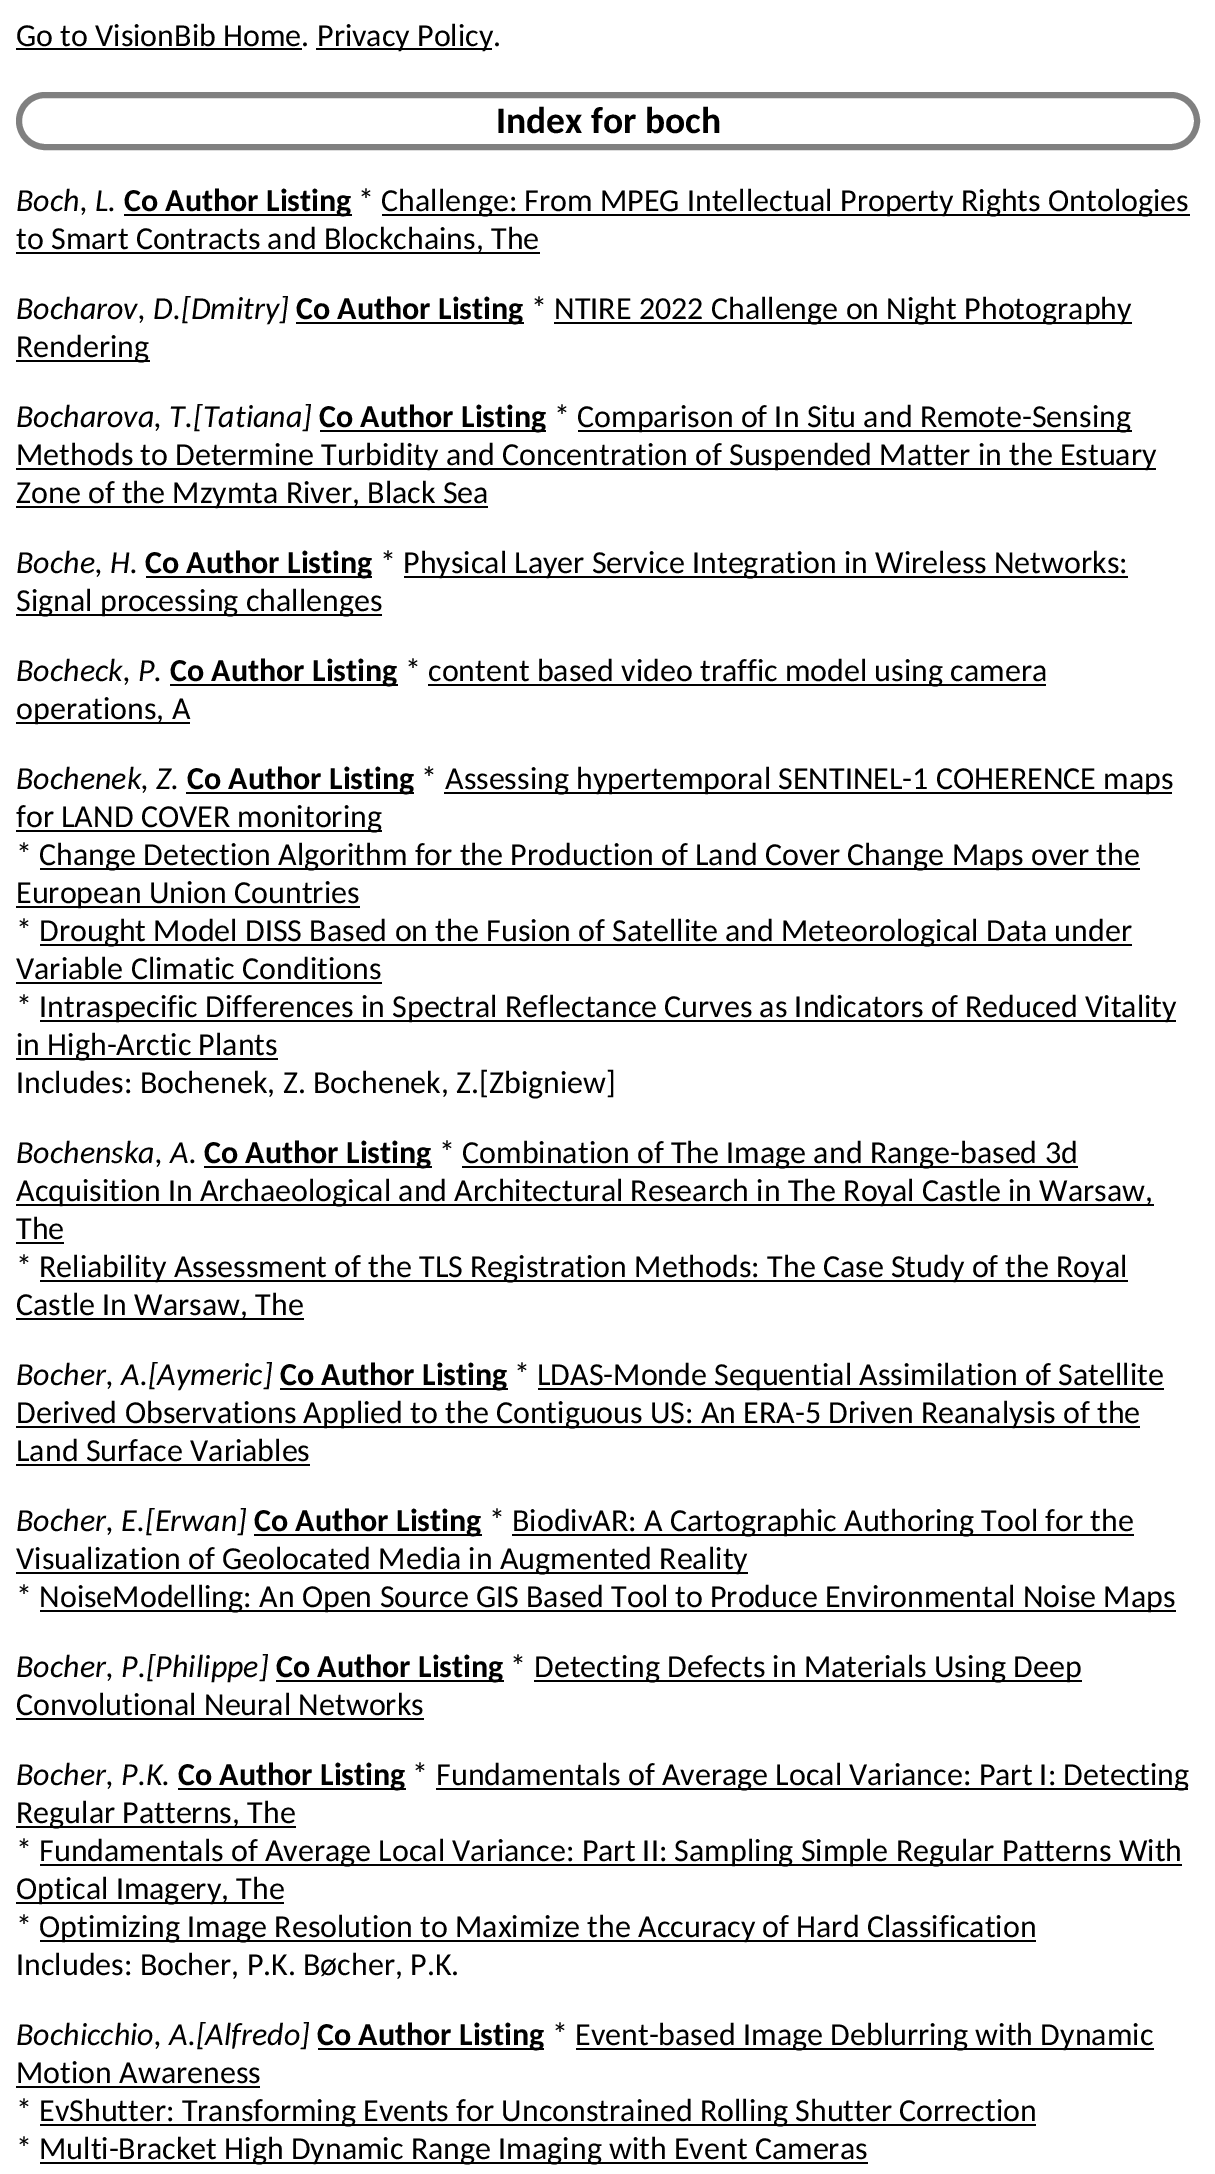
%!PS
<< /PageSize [1215 2174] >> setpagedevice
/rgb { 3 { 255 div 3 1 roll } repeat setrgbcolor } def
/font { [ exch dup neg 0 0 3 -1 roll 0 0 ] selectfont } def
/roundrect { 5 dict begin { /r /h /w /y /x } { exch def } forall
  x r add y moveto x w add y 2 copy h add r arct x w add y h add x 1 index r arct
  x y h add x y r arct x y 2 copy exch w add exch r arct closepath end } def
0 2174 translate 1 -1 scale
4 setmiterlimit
255 255 255 rgb
0 0 1215 2174 rectfill
0 0 0 rgb
16 48 286 2 rectfill
316 48 176 2 rectfill
128 128 128 rgb
6 setlinewidth
19 95 1178 52 26 roundrect stroke
[
  [124 214 228 2 0 0 0]
  [382 214 808 2 0 0 0]
  [16 252 524 2 0 0 0]
  [296 322 228 2 0 0 0]
  [554 322 578 2 0 0 0]
  [16 360 134 2 0 0 0]
  [320 430 226 2 0 0 0]
  [578 430 554 2 0 0 0]
  [16 468 1140 2 0 0 0]
  [16 506 472 2 0 0 0]
  [146 576 226 2 0 0 0]
  [404 576 724 2 0 0 0]
  [16 614 366 2 0 0 0]
  [170 684 228 2 0 0 0]
  [428 684 618 2 0 0 0]
  [16 722 174 2 0 0 0]
  [186 792 228 2 0 0 0]
  [444 792 728 2 0 0 0]
  [16 830 366 2 0 0 0]
  [40 868 1100 2 0 0 0]
  [16 906 344 2 0 0 0]
  [40 944 1092 2 0 0 0]
  [16 982 366 2 0 0 0]
  [40 1020 1136 2 0 0 0]
  [16 1058 262 2 0 0 0]
  [204 1166 228 2 0 0 0]
  [462 1166 616 2 0 0 0]
  [16 1204 1138 2 0 0 0]
  [16 1242 48 2 0 0 0]
  [40 1280 1088 2 0 0 0]
  [16 1318 288 2 0 0 0]
  [280 1388 228 2 0 0 0]
  [538 1388 626 2 0 0 0]
  [16 1426 1124 2 0 0 0]
  [16 1464 294 2 0 0 0]
  [254 1534 228 2 0 0 0]
  [512 1534 622 2 0 0 0]
  [16 1572 732 2 0 0 0]
  [40 1610 1136 2 0 0 0]
  [276 1680 228 2 0 0 0]
  [534 1680 548 2 0 0 0]
  [16 1718 408 2 0 0 0]
  [178 1788 228 2 0 0 0]
  [436 1788 752 2 0 0 0]
  [16 1826 280 2 0 0 0]
  [40 1864 1142 2 0 0 0]
  [16 1902 268 2 0 0 0]
  [40 1940 996 2 0 0 0]
  [318 2048 226 2 0 0 0]
  [576 2048 578 2 0 0 0]
  [16 2086 244 2 0 0 0]
  [40 2124 996 2 0 0 0]
  [40 2162 828 2 0 0 0]
] { aload pop rgb rectfill } forall
/Carlito-Regular 32 font
16 46 moveto (Go to VisionBib Home.) show
317 46 moveto (Privacy Policy.) show
/Carlito-Bold 37.5 font
496 133 moveto (Index for boch) show
/Carlito-Italic 32 font
16 211 moveto (Boch, L.) show
/Carlito-Bold 32 font
124 211 moveto (Co Author Listing) show
/Carlito-Regular 32 font
[
  [(*) 358 211]
  [(Challenge: From MPEG Intellectual Property Rights Ontologies) 381 211]
  [(to Smart Contracts and Blockchains, The) 16 249]
] { aload pop moveto show } forall
/Carlito-Italic 32 font
16 319 moveto (Bocharov, D.[Dmitry]) show
/Carlito-Bold 32 font
296 319 moveto (Co Author Listing) show
/Carlito-Regular 32 font
[
  [(*) 531 319]
  [(NTIRE 2022 Challenge on Night Photography) 554 319]
  [(Rendering) 16 357]
] { aload pop moveto show } forall
/Carlito-Italic 32 font
16 427 moveto (Bocharova, T.[Tatiana]) show
/Carlito-Bold 32 font
319 427 moveto (Co Author Listing) show
/Carlito-Regular 32 font
[
  [(*) 554 427]
  [(Comparison of In Situ and Remote-Sensing) 577 427]
  [(Methods to Determine Turbidity and Concentration of Suspended Matter in the Estuary) 16 465]
  [(Zone of the Mzymta River, Black Sea) 16 503]
] { aload pop moveto show } forall
/Carlito-Italic 32 font
16 573 moveto (Boche, H.) show
/Carlito-Bold 32 font
145 573 moveto (Co Author Listing) show
/Carlito-Regular 32 font
[
  [(*) 380 573]
  [(Physical Layer Service Integration in Wireless Networks:) 403 573]
  [(Signal processing challenges) 16 611]
] { aload pop moveto show } forall
/Carlito-Italic 32 font
16 681 moveto (Bocheck, P.) show
/Carlito-Bold 32 font
170 681 moveto (Co Author Listing) show
/Carlito-Regular 32 font
[
  [(*) 405 681]
  [(content based video traffic model using camera) 428 681]
  [(operations, A) 16 719]
] { aload pop moveto show } forall
/Carlito-Italic 32 font
16 789 moveto (Bochenek, Z.) show
/Carlito-Bold 32 font
187 789 moveto (Co Author Listing) show
/Carlito-Regular 32 font
[
  [(*) 421 789]
  [(Assessing hypertemporal SENTINEL-1 COHERENCE maps) 445 789]
  [(for LAND COVER monitoring) 16 827]
  [(*) 16 865]
  [(Change Detection Algorithm for the Production of Land Cover Change Maps over the) 39 865]
  [(European Union Countries) 16 903]
  [(*) 16 941]
  [(Drought Model DISS Based on the Fusion of Satellite and Meteorological Data under) 39 941]
  [(Variable Climatic Conditions) 16 979]
  [(*) 16 1017]
  [(Intraspecific Differences in Spectral Reflectance Curves as Indicators of Reduced Vitality) 39 1017]
  [(in High-Arctic Plants) 16 1055]
  [(Includes: Bochenek, Z. Bochenek, Z.[Zbigniew]) 16 1093]
] { aload pop moveto show } forall
/Carlito-Italic 32 font
16 1163 moveto (Bochenska, A.) show
/Carlito-Bold 32 font
204 1163 moveto (Co Author Listing) show
/Carlito-Regular 32 font
[
  [(*) 439 1163]
  [(Combination of The Image and Range-based 3d) 462 1163]
  [(Acquisition In Archaeological and Architectural Research in The Royal Castle in Warsaw,) 16 1201]
  [(The) 16 1239]
  [(*) 16 1277]
  [(Reliability Assessment of the TLS Registration Methods: The Case Study of the Royal) 39 1277]
  [(Castle In Warsaw, The) 16 1315]
] { aload pop moveto show } forall
/Carlito-Italic 32 font
16 1385 moveto (Bocher, A.[Aymeric]) show
/Carlito-Bold 32 font
280 1385 moveto (Co Author Listing) show
/Carlito-Regular 32 font
[
  [(*) 514 1385]
  [(LDAS-Monde Sequential Assimilation of Satellite) 537 1385]
  [(Derived Observations Applied to the Contiguous US: An ERA-5 Driven Reanalysis of the) 16 1423]
  [(Land Surface Variables) 16 1461]
] { aload pop moveto show } forall
/Carlito-Italic 32 font
16 1531 moveto (Bocher, E.[Erwan]) show
/Carlito-Bold 32 font
254 1531 moveto (Co Author Listing) show
/Carlito-Regular 32 font
[
  [(*) 489 1531]
  [(BiodivAR: A Cartographic Authoring Tool for the) 512 1531]
  [(Visualization of Geolocated Media in Augmented Reality) 16 1569]
  [(*) 16 1607]
  [(NoiseModelling: An Open Source GIS Based Tool to Produce Environmental Noise Maps) 39 1607]
] { aload pop moveto show } forall
/Carlito-Italic 32 font
16 1677 moveto (Bocher, P.[Philippe]) show
/Carlito-Bold 32 font
276 1677 moveto (Co Author Listing) show
/Carlito-Regular 32 font
[
  [(*) 510 1677]
  [(Detecting Defects in Materials Using Deep) 534 1677]
  [(Convolutional Neural Networks) 16 1715]
] { aload pop moveto show } forall
/Carlito-Italic 32 font
16 1785 moveto (Bocher, P.K.) show
/Carlito-Bold 32 font
178 1785 moveto (Co Author Listing) show
/Carlito-Regular 32 font
[
  [(*) 412 1785]
  [(Fundamentals of Average Local Variance: Part I: Detecting) 436 1785]
  [(Regular Patterns, The) 16 1823]
  [(*) 16 1861]
  [(Fundamentals of Average Local Variance: Part II: Sampling Simple Regular Patterns With) 39 1861]
  [(Optical Imagery, The) 16 1899]
  [(*) 16 1937]
  [(Optimizing Image Resolution to Maximize the Accuracy of Hard Classification) 39 1937]
  [(Includes: Bocher, P.K. Bøcher, P.K.) 16 1975]
] { aload pop moveto show } forall
/Carlito-Italic 32 font
16 2045 moveto (Bochicchio, A.[Alfredo]) show
/Carlito-Bold 32 font
317 2045 moveto (Co Author Listing) show
/Carlito-Regular 32 font
[
  [(*) 552 2045]
  [(Event-based Image Deblurring with Dynamic) 575 2045]
  [(Motion Awareness) 16 2083]
  [(*) 16 2121]
  [(EvShutter: Transforming Events for Unconstrained Rolling Shutter Correction) 39 2121]
  [(*) 16 2159]
  [(Multi-Bracket High Dynamic Range Imaging with Event Cameras) 39 2159]
] { aload pop moveto show } forall
showpage
